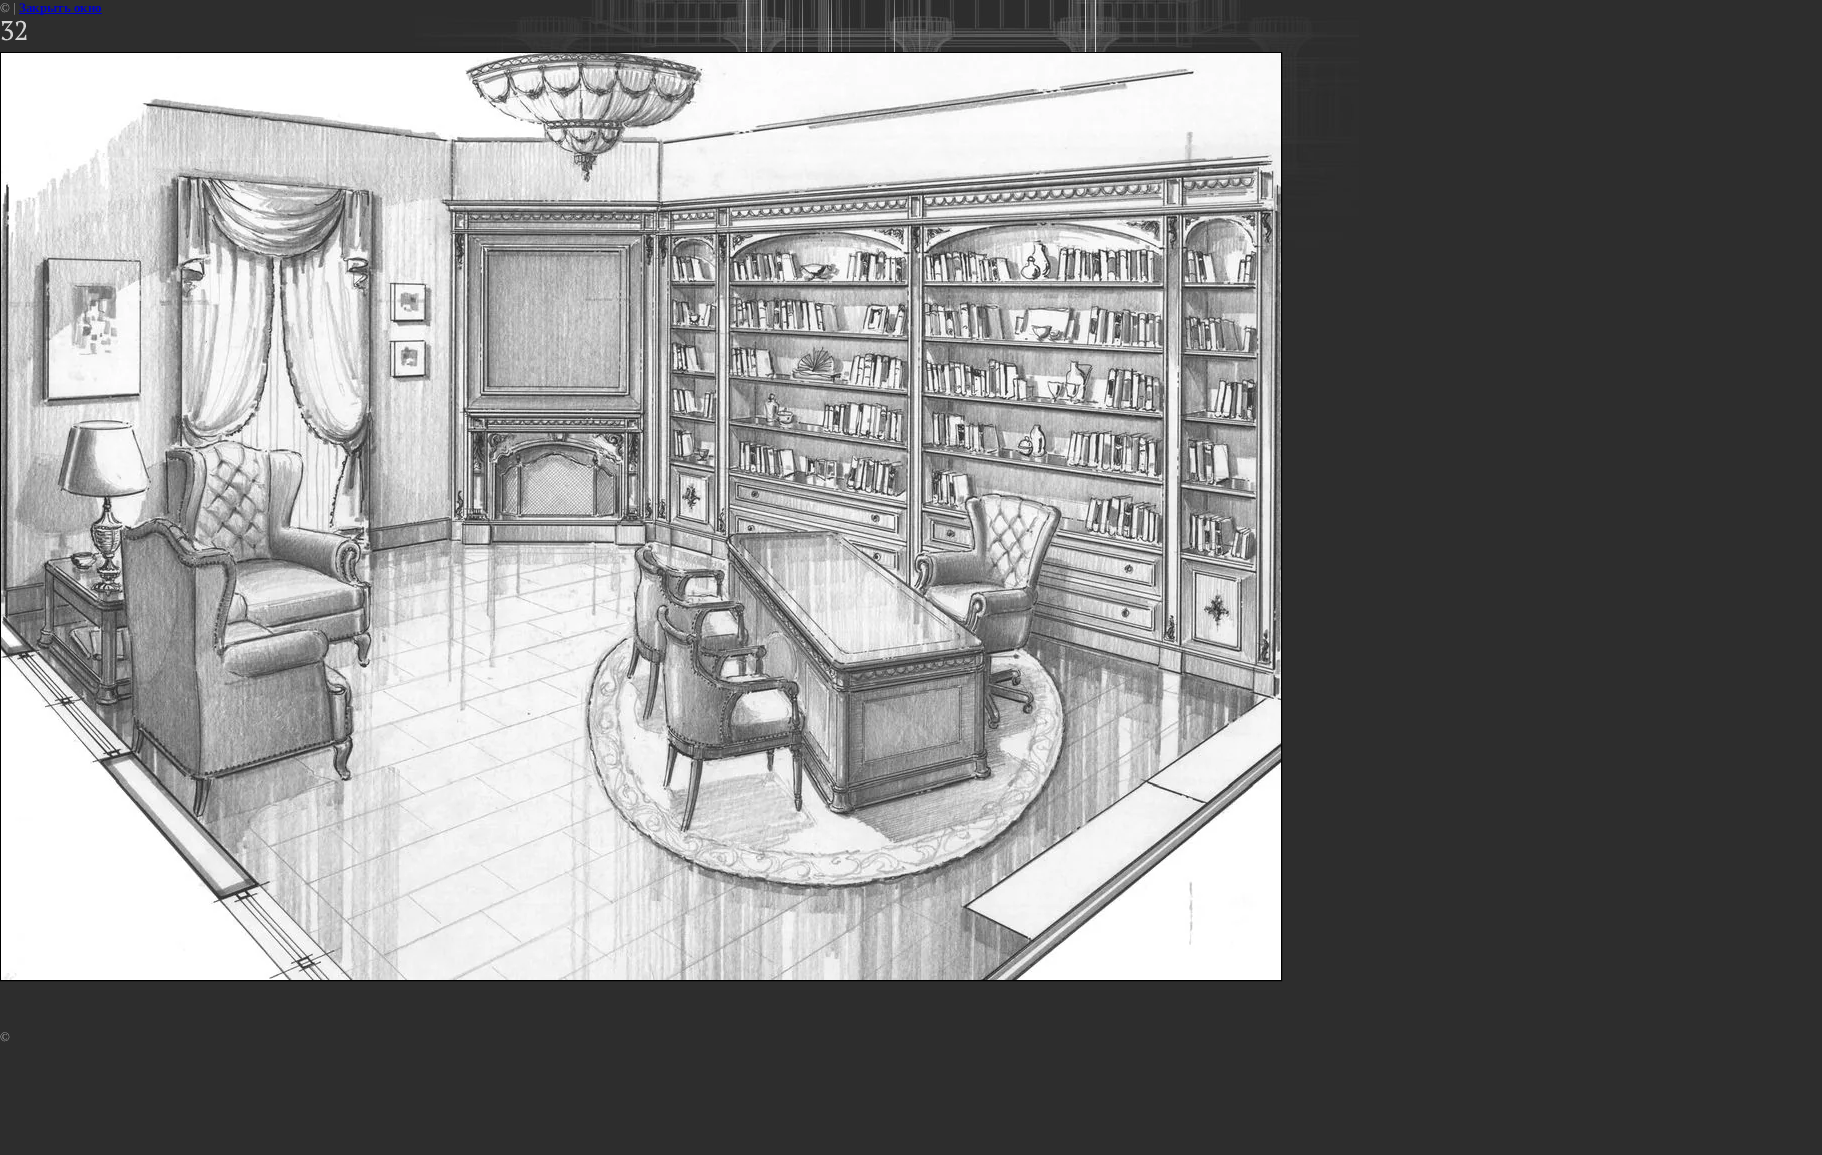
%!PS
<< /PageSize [1822 1155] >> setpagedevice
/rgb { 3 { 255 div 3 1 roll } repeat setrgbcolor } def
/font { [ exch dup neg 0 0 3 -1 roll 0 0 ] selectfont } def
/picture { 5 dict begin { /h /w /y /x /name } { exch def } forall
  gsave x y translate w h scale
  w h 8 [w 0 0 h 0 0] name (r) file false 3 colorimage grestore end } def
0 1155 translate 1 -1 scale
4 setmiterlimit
45 45 45 rgb
0 0 1822 1155 rectfill
(img/1.rgb) 415 0 944 289 picture
0 0 204 rgb
19 13 83 1 rectfill
0 0 0 rgb
0.5 52.5 1281 928 rectstroke
(img/2.rgb) 1 53 1280 927 picture
/LiberationSerif-Regular 13 font
171 171 171 rgb
0 12 moveto (© |) show
/LiberationSerif-Bold 13 font
0 0 204 rgb
19 12 moveto (Закрыть окно) show
/PTSerif-Regular 27 font
213 213 213 rgb
0 40 moveto (32) show
/LiberationSerif-Regular 13 font
171 171 171 rgb
0 1041 moveto (©) show
showpage
